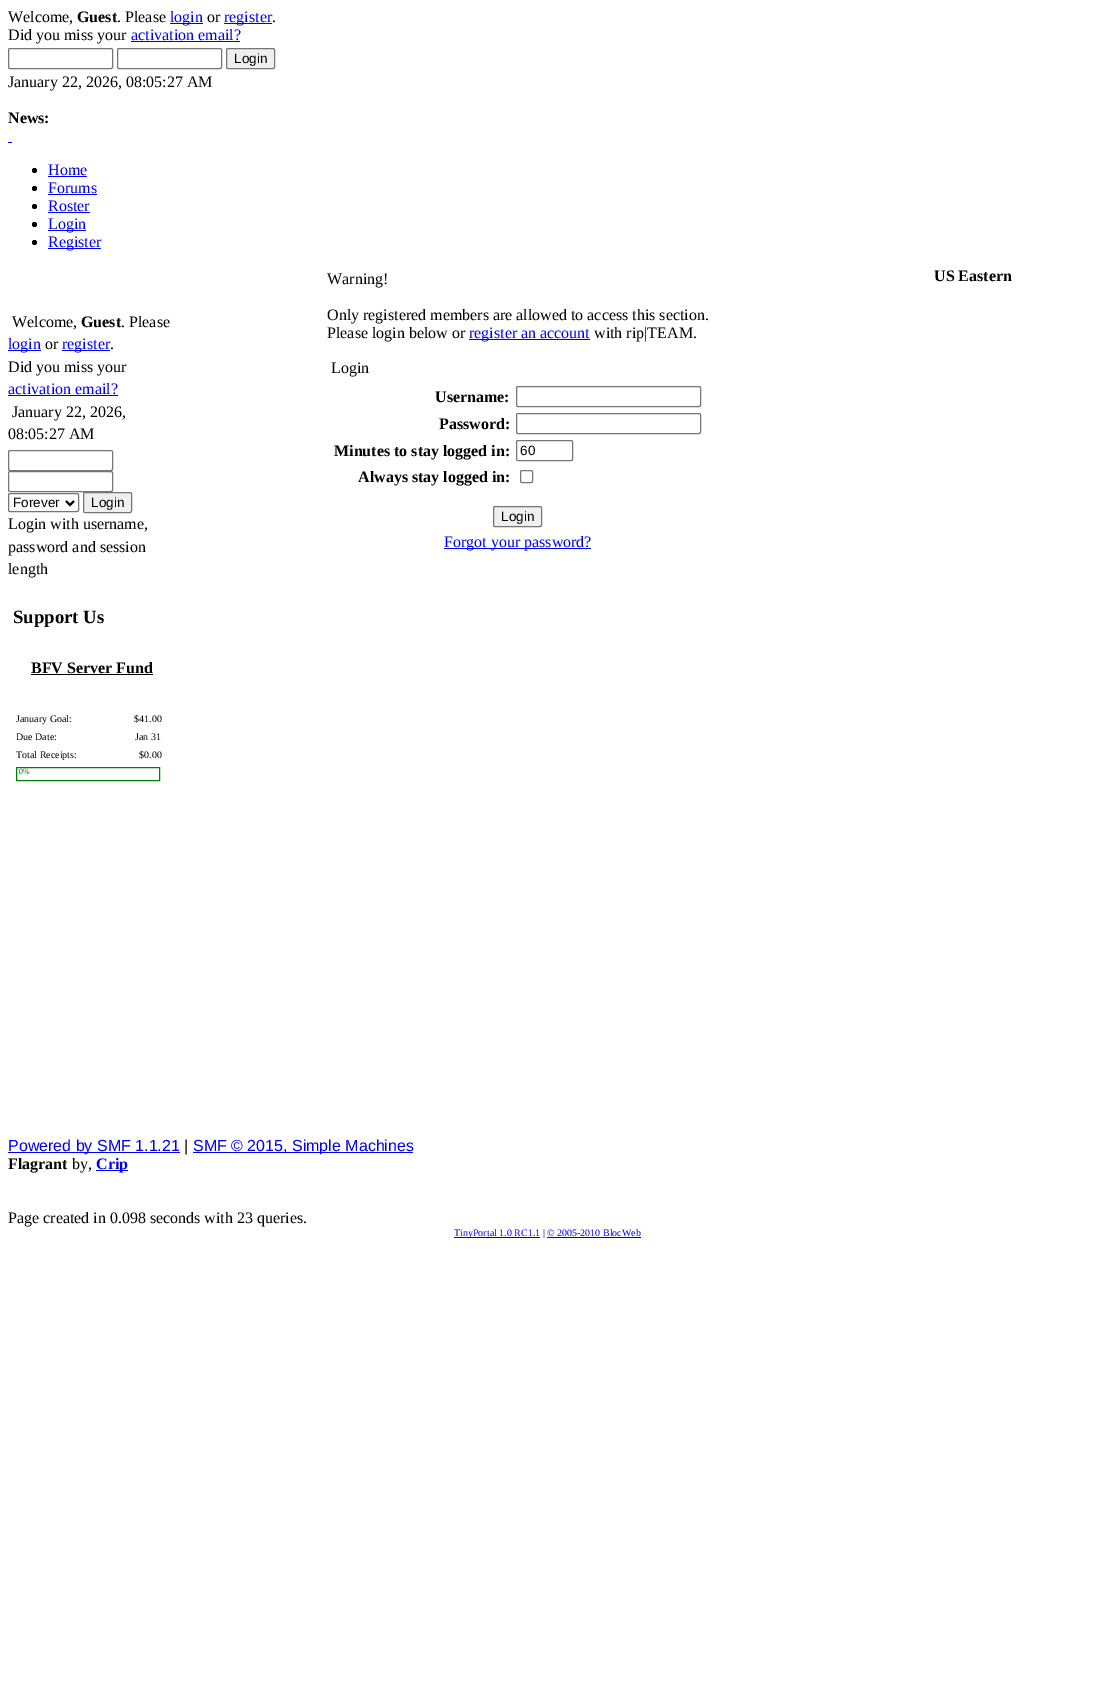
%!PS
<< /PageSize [1095 1696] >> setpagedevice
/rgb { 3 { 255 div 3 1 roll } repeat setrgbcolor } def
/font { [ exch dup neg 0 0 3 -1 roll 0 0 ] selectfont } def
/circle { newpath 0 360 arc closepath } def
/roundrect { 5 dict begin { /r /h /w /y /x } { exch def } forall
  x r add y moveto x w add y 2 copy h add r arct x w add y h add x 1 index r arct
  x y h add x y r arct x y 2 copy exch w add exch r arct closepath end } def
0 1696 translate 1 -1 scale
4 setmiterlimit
255 255 255 rgb
0 0 1095 1696 rectfill
[
  [170 23 33 1 0 0 238]
  [224 23 48 1 0 0 238]
  [131 41 109 1 0 0 238]
] { aload pop rgb rectfill } forall
118 118 118 rgb
8.5 48.5 104 20 1.5 roundrect stroke
117.5 48.5 104 20 1.5 roundrect stroke
239 239 239 rgb
226.5 48.5 48 20 1.5 roundrect gsave fill grestore
118 118 118 rgb
stroke
0 0 238 rgb
8 142 4 1 rectfill
0 0 0 rgb
34.5 170.5 2.5 circle fill
0 0 238 rgb
48 176 39 1 rectfill
0 0 0 rgb
34.5 188.5 2.5 circle fill
0 0 238 rgb
48 194 49 1 rectfill
0 0 0 rgb
34.5 206.5 2.5 circle fill
0 0 238 rgb
48 212 42 1 rectfill
0 0 0 rgb
34.5 224.5 2.5 circle fill
0 0 238 rgb
48 230 38 1 rectfill
0 0 0 rgb
34.5 242.5 2.5 circle fill
[
  [48 248 53 1 0 0 238]
  [8 350 33 1 0 0 238]
  [62 350 48 1 0 0 238]
  [8 395 110 1 0 0 238]
] { aload pop rgb rectfill } forall
118 118 118 rgb
8.5 450.5 104 20 1.5 roundrect stroke
8.5 471.5 104 20 1.5 roundrect stroke
8.5 493.5 70 18 1.5 roundrect stroke
0 0 0 rgb
2 setlinewidth
66 501 moveto 70 505 lineto 74 501 lineto stroke
239 239 239 rgb
83.5 492.5 48 20 1.5 roundrect gsave fill grestore
118 118 118 rgb
1 setlinewidth
stroke
0 0 0 rgb
31 674 122 1 rectfill
0 128 0 rgb
16.5 767.5 143 13 rectstroke
0 0 238 rgb
469 339 121 1 rectfill
118 118 118 rgb
516.5 386.5 184 20 1.5 roundrect stroke
516.5 413.5 184 20 1.5 roundrect stroke
516.5 440.5 56 20 1.5 roundrect stroke
520.5 470.5 12 12 1.5 roundrect stroke
239 239 239 rgb
493.5 506.5 48 20 1.5 roundrect gsave fill grestore
118 118 118 rgb
stroke
[
  [444 548 147 1 0 0 238]
  [8 1152 172 1 0 0 238]
  [193 1152 220 1 0 0 238]
  [96 1170 32 1 0 0 238]
  [454 1237 86 1 0 0 238]
  [547 1237 94 1 0 0 238]
] { aload pop rgb rectfill } forall
/LiberationSerif-Regular 16 font
0 0 0 rgb
8 22 moveto (Welcome,) show
/LiberationSerif-Bold 16 font
77 22 moveto (Guest) show
/LiberationSerif-Regular 16 font
117 22 moveto (. Please) show
0 0 238 rgb
170 22 moveto (login) show
0 0 0 rgb
207 22 moveto (or) show
0 0 238 rgb
224 22 moveto (register) show
0 0 0 rgb
272 22 moveto (.) show
8 40 moveto (Did you miss your) show
0 0 238 rgb
131 40 moveto (activation email?) show
/LiberationSans-Regular 13.5 font
0 0 0 rgb
234 63 moveto (Login) show
/LiberationSerif-Regular 16 font
8 87 moveto (January 22, 2026, 08:05:27 AM) show
/LiberationSerif-Bold 16 font
8 123 moveto (News:) show
/LiberationSerif-Regular 16 font
0 0 238 rgb
[
  [(Home) 48 175]
  [(Forums) 48 193]
  [(Roster) 48 211]
  [(Login) 48 229]
  [(Register) 48 247]
] { aload pop moveto show } forall
0 0 0 rgb
12 327 moveto (Welcome,) show
/LiberationSerif-Bold 16 font
81 327 moveto (Guest) show
/LiberationSerif-Regular 16 font
121 327 moveto (. Please) show
0 0 238 rgb
8 349 moveto (login) show
0 0 0 rgb
45 349 moveto (or) show
0 0 238 rgb
62 349 moveto (register) show
0 0 0 rgb
110 349 moveto (.) show
8 372 moveto (Did you miss your) show
0 0 238 rgb
8 394 moveto (activation email?) show
0 0 0 rgb
12 417 moveto (January 22, 2026,) show
8 439 moveto (08:05:27 AM) show
/LiberationSans-Regular 13.5 font
13 507 moveto (Forever) show
91 507 moveto (Login) show
/LiberationSerif-Regular 16 font
[
  [(Login with username,) 8 529]
  [(password and session) 8 552]
  [(length) 8 574]
] { aload pop moveto show } forall
/LiberationSerif-Bold 18.75 font
13 623 moveto (Support Us) show
/LiberationSerif-Bold 16 font
31 673 moveto (BFV Server Fund) show
/LiberationSerif-Regular 10 font
[
  [(January Goal:) 16 722]
  [($41.00) 134 722]
  [(Due Date:) 16 740]
  [(Jan 31) 135 740]
  [(Total Receipts:) 16 758]
  [($0.00) 139 758]
] { aload pop moveto show } forall
/LiberationSerif-Regular 8 font
0 128 0 rgb
19 774 moveto (0%) show
/LiberationSerif-Regular 16 font
0 0 0 rgb
[
  [(Warning!) 327 284]
  [(Only registered members are allowed to access this section.) 327 320]
  [(Please login below or) 327 338]
] { aload pop moveto show } forall
0 0 238 rgb
469 338 moveto (register an account) show
0 0 0 rgb
594 338 moveto (with rip|TEAM.) show
331 373 moveto (Login) show
/LiberationSerif-Bold 16 font
[
  [(Username:) 435 402]
  [(Password:) 439 429]
  [(Minutes to stay logged in:) 334 456]
] { aload pop moveto show } forall
/LiberationSans-Regular 13.5 font
520 455 moveto (60) show
/LiberationSerif-Bold 16 font
358 482 moveto (Always stay logged in:) show
/LiberationSans-Regular 13.5 font
501 521 moveto (Login) show
/LiberationSerif-Regular 16 font
0 0 238 rgb
444 547 moveto (Forgot your password?) show
/LiberationSerif-Bold 16 font
0 0 0 rgb
934 281 moveto (US Eastern) show
/LiberationSans-Regular 16 font
0 0 238 rgb
8 1151 moveto (Powered by SMF 1.1.21) show
0 0 0 rgb
184 1151 moveto (|) show
0 0 238 rgb
193 1151 moveto (SMF © 2015, Simple Machines) show
/LiberationSerif-Bold 16 font
0 0 0 rgb
8 1169 moveto (Flagrant) show
/LiberationSerif-Regular 16 font
72 1169 moveto (by,) show
/LiberationSerif-Bold 16 font
0 0 238 rgb
96 1169 moveto (Crip) show
/LiberationSerif-Regular 16 font
0 0 0 rgb
8 1223 moveto (Page created in 0.098 seconds with 23 queries.) show
/LiberationSerif-Regular 10 font
0 0 238 rgb
454 1236 moveto (TinyPortal 1.0 RC1.1) show
0 0 0 rgb
543 1236 moveto (|) show
0 0 238 rgb
547 1236 moveto (© 2005-2010 BlocWeb) show
showpage
